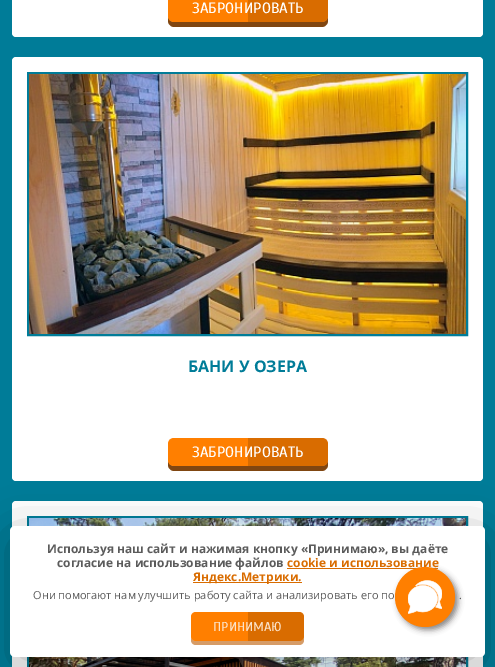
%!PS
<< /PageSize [495 667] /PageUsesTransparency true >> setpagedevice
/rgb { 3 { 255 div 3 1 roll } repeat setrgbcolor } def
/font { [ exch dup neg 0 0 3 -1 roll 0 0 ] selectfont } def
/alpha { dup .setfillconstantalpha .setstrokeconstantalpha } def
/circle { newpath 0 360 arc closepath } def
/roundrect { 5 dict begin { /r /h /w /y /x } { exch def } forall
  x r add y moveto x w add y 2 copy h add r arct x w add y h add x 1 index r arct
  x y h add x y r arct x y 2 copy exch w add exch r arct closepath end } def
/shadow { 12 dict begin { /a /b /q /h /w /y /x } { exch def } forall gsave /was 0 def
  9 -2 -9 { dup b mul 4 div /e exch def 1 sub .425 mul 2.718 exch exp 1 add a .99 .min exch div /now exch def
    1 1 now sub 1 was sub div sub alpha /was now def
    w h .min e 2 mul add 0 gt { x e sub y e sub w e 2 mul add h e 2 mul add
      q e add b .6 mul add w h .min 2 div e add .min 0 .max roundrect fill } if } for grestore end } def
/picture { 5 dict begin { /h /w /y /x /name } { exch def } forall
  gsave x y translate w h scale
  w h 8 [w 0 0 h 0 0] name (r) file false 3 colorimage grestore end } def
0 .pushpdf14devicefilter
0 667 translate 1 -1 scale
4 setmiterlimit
0 124 152 rgb
0 0 495 667 rectfill
255 255 255 rgb
12 -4 471 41 4 roundrect fill
128 70 17 rgb
168 16 moveto 168 21 lineto 168 24 171 27 174 27 curveto 322 27 lineto 325 27 328 24 328 21 curveto 328 16 lineto 328 19 325 22 322 22 curveto 174 22 lineto 171 22 168 19 168 16 curveto closepath fill
255 127 0 rgb
174 -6 moveto 248 -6 lineto 248 22 lineto 174 22 lineto 170.5 22 168 19.5 168 16 curveto 168 0 lineto 168 -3.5 170.5 -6 174 -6 curveto closepath fill
217 108 0 rgb
248 -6 moveto 322 -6 lineto 325.5 -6 328 -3.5 328 0 curveto 328 16 lineto 328 19.5 325.5 22 322 22 curveto 248 22 lineto closepath fill
255 255 255 rgb
12 57 471 424 4 roundrect fill
0 124 152 rgb
2 setlinewidth
28 73 439 262 rectstroke
(img/1.rgb) 29 74 437 260 picture
128 70 17 rgb
168 460 moveto 168 465 lineto 168 468 171 471 174 471 curveto 322 471 lineto 325 471 328 468 328 465 curveto 328 460 lineto 328 463 325 466 322 466 curveto 174 466 lineto 171 466 168 463 168 460 curveto closepath fill
255 127 0 rgb
174 438 moveto 248 438 lineto 248 466 lineto 174 466 lineto 170.5 466 168 463.5 168 460 curveto 168 444 lineto 168 440.5 170.5 438 174 438 curveto closepath fill
217 108 0 rgb
248 438 moveto 322 438 lineto 325.5 438 328 440.5 328 444 curveto 328 460 lineto 328 463.5 325.5 466 322 466 curveto 248 466 lineto closepath fill
255 255 255 rgb
12 501 471 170 4 roundrect fill
0 124 152 rgb
28 517 439 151 rectstroke
(img/2.rgb) 29 518 437 149 picture
4 4 4 rgb
10 536 475 131 5 24 0.3 shadow
255 255 255 rgb
10 526 475 131 5 roundrect fill
217 108 0 rgb
287 568 151 1 rectfill
193 582 109 1 rectfill
214 156 103 rgb
191 636 moveto 191 640 lineto 191 643 193 645 196 645 curveto 299 645 lineto 302 645 304 643 304 640 curveto 304 636 lineto 304 639 302 641 299 641 curveto 196 641 lineto 193 641 191 639 191 636 curveto closepath fill
255 127 0 rgb
196 612 moveto 248 612 lineto 248 641 lineto 196 641 lineto 193 641 191 639 191 636 curveto 191 617 lineto 191 614 193 612 196 612 curveto closepath fill
217 108 0 rgb
248 612 moveto 299 612 lineto 302 612 304 614 304 617 curveto 304 636 lineto 304 639 302 641 299 641 curveto 248 641 lineto closepath fill
136 134 134 rgb
398 570 60 60 30 3 1 shadow
/Scada-Regular 15 font
255 255 255 rgb
192 13 moveto (ЗАБРОНИРОВАТЬ) show
/OpenSans-Bold 16 font
0 124 152 rgb
188 372 moveto (БАНИ У ОЗЕРА) show
/Scada-Regular 15 font
255 255 255 rgb
192 457 moveto (ЗАБРОНИРОВАТЬ) show
/OpenSans-Bold 12 font
91 91 91 rgb
47 553 moveto (Используя наш сайт и нажимая кнопку «Принимаю», вы даёте) show
57 567 moveto (согласие на использование файлов) show
217 108 0 rgb
287 567 moveto (cookie и использование) show
193 581 moveto (Яндекс.Метрики.) show
/OpenSans-Regular 11 font
91 91 91 rgb
33 599 moveto (Они помогают нам улучшить работу сайта и анализировать его по) show
459 599 moveto (.) show
/Scada-Regular 13 font
251 226 201 rgb
213 631 moveto (ПРИНИМАЮ) show
255 127 0 rgb
425 597 30 circle fill
(img/3.rgb) 408 580 34 34 picture
.poppdf14devicefilter showpage
